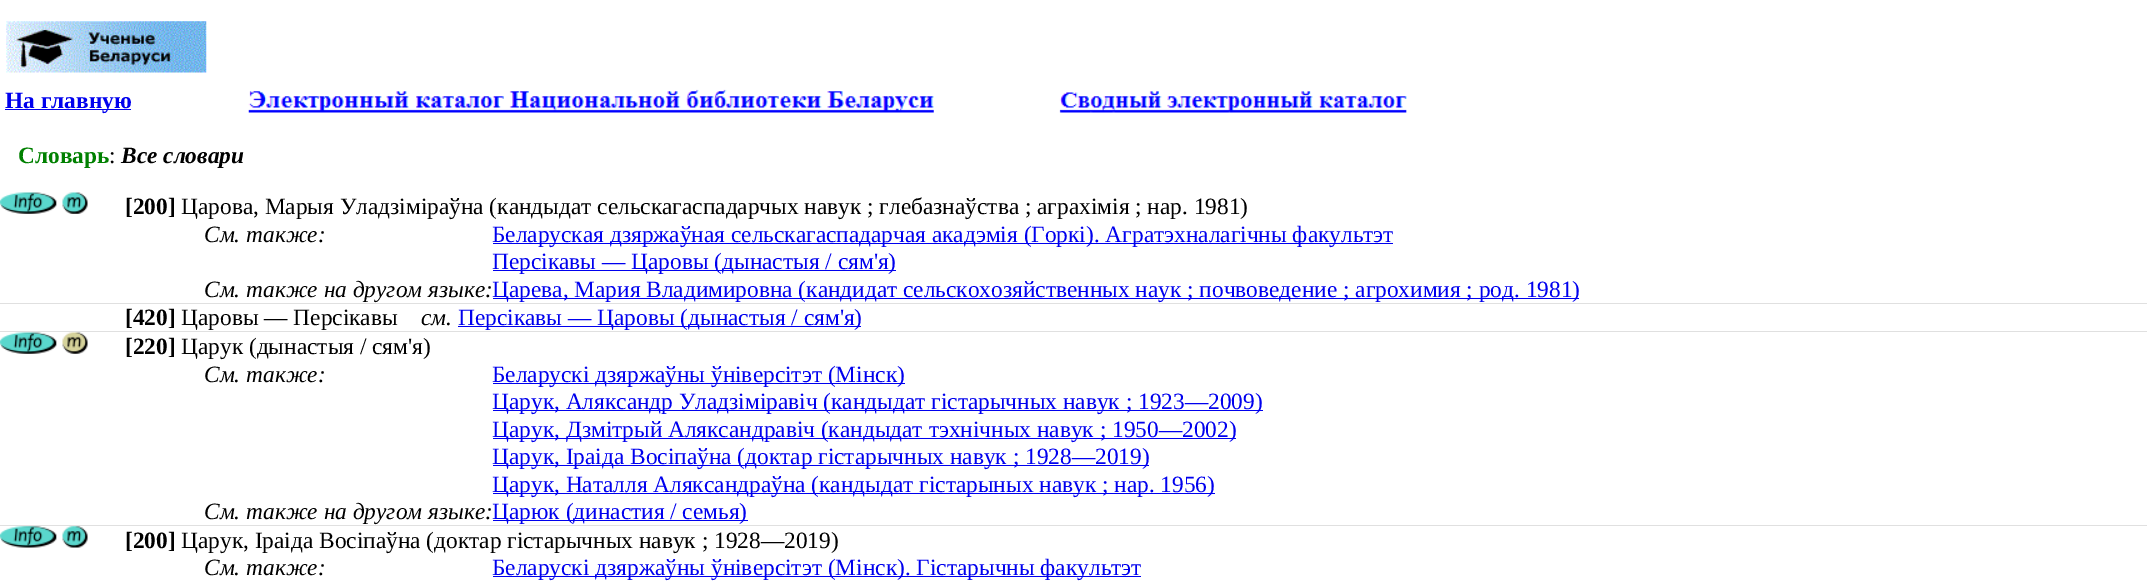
%!PS
<< /PageSize [2147 583] >> setpagedevice
/rgb { 3 { 255 div 3 1 roll } repeat setrgbcolor } def
/font { [ exch dup neg 0 0 3 -1 roll 0 0 ] selectfont } def
/picture { 5 dict begin { /h /w /y /x /name } { exch def } forall
  gsave x y translate w h scale
  w h 8 [w 0 0 h 0 0] name (r) file false 3 colorimage grestore end } def
0 583 translate 1 -1 scale
4 setmiterlimit
255 255 255 rgb
0 0 2147 583 rectfill
(img/1.rgb) 6 21 201 52 picture
0 0 238 rgb
5 109 126 1 rectfill
(img/2.rgb) 248 89 686 24 picture
(img/3.rgb) 1059 91 348 22 picture
(img/4.rgb) 0 192 57 22 picture
(img/5.rgb) 62 192 26 22 picture
[
  [0 303 2147 1 224 224 224]
  [493 243 900 1 0 0 238]
  [493 270 403 1 0 0 238]
  [493 298 1086 1 0 0 238]
  [0 331 2147 1 224 224 224]
  [458 326 403 1 0 0 238]
] { aload pop rgb rectfill } forall
(img/4.rgb) 0 332 57 22 picture
(img/6.rgb) 62 332 26 22 picture
[
  [0 525 2147 1 224 224 224]
  [493 383 412 1 0 0 238]
  [493 410 770 1 0 0 238]
  [493 438 743 1 0 0 238]
  [493 465 656 1 0 0 238]
  [493 493 722 1 0 0 238]
  [493 520 255 1 0 0 238]
] { aload pop rgb rectfill } forall
(img/7.rgb) 0 526 57 22 picture
(img/8.rgb) 62 526 26 22 picture
493 576 648 1 rectfill
/LiberationSerif-Bold 23.35 font
5 108 moveto (На главную) show
0 128 0 rgb
18 163 moveto (Словарь) show
/LiberationSerif-Regular 23.35 font
0 0 0 rgb
109 163 moveto (:) show
/LiberationSerif-BoldItalic 23.35 font
121 163 moveto (Все словари) show
/LiberationSerif-Bold 23.35 font
125 214 moveto ([200]) show
/LiberationSerif-Regular 23.35 font
181 214 moveto (Царова, Марыя Уладзіміраўна \(кандыдат сельскагаспадарчых навук ; глебазнаўства ; аграхімія ; нар. 1981\)) show
/LiberationSerif-Italic 23.35 font
204 242 moveto (См. также:) show
/LiberationSerif-Regular 23.35 font
0 0 238 rgb
492 242 moveto (Беларуская дзяржаўная сельскагаспадарчая акадэмія \(Горкі\). Агратэхналагічны факультэт) show
492 269 moveto (Персікавы — Царовы \(дынастыя / сям'я\)) show
/LiberationSerif-Italic 23.35 font
0 0 0 rgb
204 297 moveto (См. также на другом языке:) show
/LiberationSerif-Regular 23.35 font
0 0 238 rgb
492 297 moveto (Царева, Мария Владимировна \(кандидат сельскохозяйственных наук ; почвоведение ; агрохимия ; род. 1981\)) show
/LiberationSerif-Bold 23.35 font
0 0 0 rgb
125 325 moveto ([420]) show
/LiberationSerif-Regular 23.35 font
181 325 moveto (Царовы — Персікавы) show
/LiberationSerif-Italic 23.35 font
421 325 moveto (см.) show
/LiberationSerif-Regular 23.35 font
0 0 238 rgb
458 325 moveto (Персікавы — Царовы \(дынастыя / сям'я\)) show
/LiberationSerif-Bold 23.35 font
0 0 0 rgb
125 354 moveto ([220]) show
/LiberationSerif-Regular 23.35 font
181 354 moveto (Царук \(дынастыя / сям'я\)) show
/LiberationSerif-Italic 23.35 font
204 382 moveto (См. также:) show
/LiberationSerif-Regular 23.35 font
0 0 238 rgb
[
  [(Беларускі дзяржаўны ўніверсітэт \(Мінск\)) 492 382]
  [(Царук, Аляксандр Уладзіміравіч \(кандыдат гістарычных навук ; 1923—2009\)) 492 409]
  [(Царук, Дзмітрый Аляксандравіч \(кандыдат тэхнічных навук ; 1950—2002\)) 492 437]
  [(Царук, Іраіда Восіпаўна \(доктар гістарычных навук ; 1928—2019\)) 492 464]
  [(Царук, Наталля Аляксандраўна \(кандыдат гістарыных навук ; нар. 1956\)) 492 492]
] { aload pop moveto show } forall
/LiberationSerif-Italic 23.35 font
0 0 0 rgb
204 519 moveto (См. также на другом языке:) show
/LiberationSerif-Regular 23.35 font
0 0 238 rgb
492 519 moveto (Царюк \(династия / семья\)) show
/LiberationSerif-Bold 23.35 font
0 0 0 rgb
125 548 moveto ([200]) show
/LiberationSerif-Regular 23.35 font
181 548 moveto (Царук, Іраіда Восіпаўна \(доктар гістарычных навук ; 1928—2019\)) show
/LiberationSerif-Italic 23.35 font
204 575 moveto (См. также:) show
/LiberationSerif-Regular 23.35 font
0 0 238 rgb
492 575 moveto (Беларускі дзяржаўны ўніверсітэт \(Мінск\). Гістарычны факультэт) show
showpage
